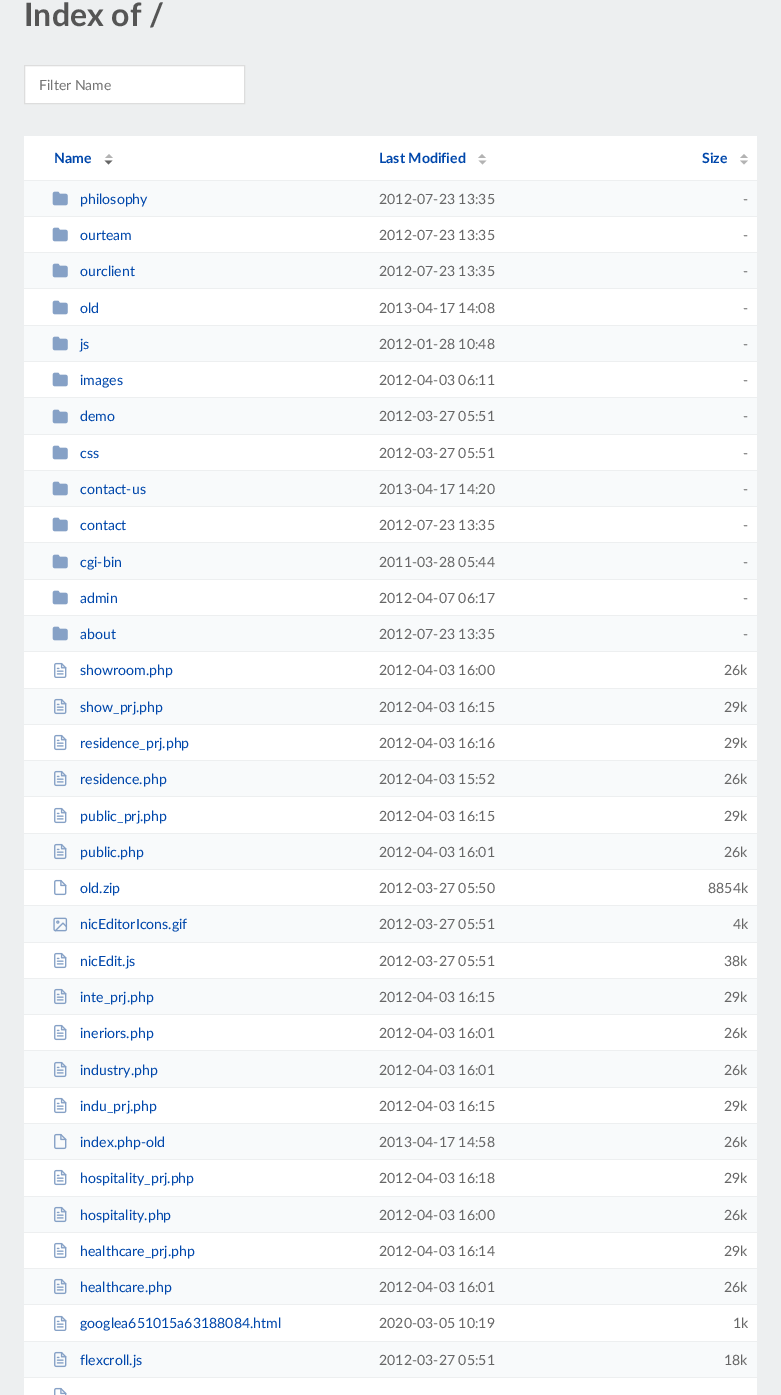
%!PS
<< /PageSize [781 1395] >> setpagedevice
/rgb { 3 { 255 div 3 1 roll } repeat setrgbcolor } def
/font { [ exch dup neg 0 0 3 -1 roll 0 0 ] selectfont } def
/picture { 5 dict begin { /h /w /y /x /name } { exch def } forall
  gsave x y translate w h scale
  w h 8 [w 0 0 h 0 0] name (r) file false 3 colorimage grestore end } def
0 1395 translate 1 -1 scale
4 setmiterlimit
237 239 240 rgb
0 0 781 1395 rectfill
255 255 255 rgb
24.5 65.5 moveto 244.5 65.5 lineto 244.5 103.5 lineto 24.5 103.5 lineto closepath gsave fill grestore
221 221 221 rgb
stroke
255 255 255 rgb
24 136 733 1259 rectfill
179 179 179 rgb
113 158 moveto 105 158 lineto 109 154 lineto closepath fill
102 102 102 rgb
104.5 160.5 moveto 112.5 160.5 lineto 108.5 164.5 lineto closepath fill
179 179 179 rgb
486 158 moveto 478 158 lineto 482 154 lineto closepath 478.5 160.5 moveto 486.5 160.5 lineto 482.5 164.5 lineto closepath fill
748 158 moveto 740 158 lineto 744 154 lineto closepath 740 160.5 moveto 748 160.5 lineto 744 164.5 lineto closepath fill
[
  [24 181 733 35 248 250 251]
  [24 180 733 1 237 239 240]
  [24 216 733 1 237 239 240]
] { aload pop rgb rectfill } forall
(img/1.rgb) 52 191 16 15 picture
(img/2.rgb) 52 227 16 15 picture
[
  [24 253 733 35 248 250 251]
  [24 252 733 1 237 239 240]
  [24 288 733 1 237 239 240]
] { aload pop rgb rectfill } forall
(img/1.rgb) 52 263 16 15 picture
(img/2.rgb) 52 300 16 15 picture
[
  [24 326 733 35 248 250 251]
  [24 325 733 1 237 239 240]
  [24 361 733 1 237 239 240]
] { aload pop rgb rectfill } forall
(img/1.rgb) 52 336 16 15 picture
(img/2.rgb) 52 372 16 15 picture
[
  [24 398 733 36 248 250 251]
  [24 397 733 1 237 239 240]
  [24 434 733 1 237 239 240]
] { aload pop rgb rectfill } forall
(img/1.rgb) 52 409 16 15 picture
(img/2.rgb) 52 445 16 15 picture
[
  [24 471 733 35 248 250 251]
  [24 470 733 1 237 239 240]
  [24 506 733 1 237 239 240]
] { aload pop rgb rectfill } forall
(img/1.rgb) 52 481 16 15 picture
(img/2.rgb) 52 517 16 15 picture
[
  [24 543 733 36 248 250 251]
  [24 542 733 1 237 239 240]
  [24 579 733 1 237 239 240]
] { aload pop rgb rectfill } forall
(img/1.rgb) 52 554 16 15 picture
(img/2.rgb) 52 590 16 15 picture
[
  [24 616 733 35 248 250 251]
  [24 615 733 1 237 239 240]
  [24 651 733 1 237 239 240]
] { aload pop rgb rectfill } forall
(img/1.rgb) 52 626 16 15 picture
(img/3.rgb) 54 662 13 16 picture
[
  [24 689 733 35 248 250 251]
  [24 688 733 1 237 239 240]
  [24 724 733 1 237 239 240]
] { aload pop rgb rectfill } forall
(img/4.rgb) 54 698 13 17 picture
(img/5.rgb) 54 734 13 17 picture
[
  [24 761 733 35 248 250 251]
  [24 760 733 1 237 239 240]
  [24 796 733 1 237 239 240]
] { aload pop rgb rectfill } forall
(img/4.rgb) 54 770 13 17 picture
(img/5.rgb) 54 807 13 17 picture
[
  [24 834 733 35 248 250 251]
  [24 833 733 1 237 239 240]
  [24 869 733 1 237 239 240]
] { aload pop rgb rectfill } forall
(img/4.rgb) 54 843 13 17 picture
(img/6.rgb) 54 879 13 17 picture
[
  [24 906 733 36 248 250 251]
  [24 905 733 1 237 239 240]
  [24 942 733 1 237 239 240]
] { aload pop rgb rectfill } forall
(img/7.rgb) 53 917 15 15 picture
(img/5.rgb) 54 952 13 17 picture
[
  [24 979 733 35 248 250 251]
  [24 978 733 1 237 239 240]
  [24 1014 733 1 237 239 240]
] { aload pop rgb rectfill } forall
(img/4.rgb) 54 988 13 17 picture
(img/5.rgb) 54 1024 13 17 picture
[
  [24 1051 733 36 248 250 251]
  [24 1050 733 1 237 239 240]
  [24 1087 733 1 237 239 240]
] { aload pop rgb rectfill } forall
(img/4.rgb) 54 1061 13 17 picture
(img/5.rgb) 54 1097 13 17 picture
[
  [24 1124 733 35 248 250 251]
  [24 1123 733 1 237 239 240]
  [24 1159 733 1 237 239 240]
] { aload pop rgb rectfill } forall
(img/8.rgb) 54 1133 13 17 picture
(img/5.rgb) 54 1169 13 17 picture
[
  [24 1197 733 35 248 250 251]
  [24 1196 733 1 237 239 240]
  [24 1232 733 1 237 239 240]
] { aload pop rgb rectfill } forall
(img/4.rgb) 54 1206 13 17 picture
(img/5.rgb) 54 1242 13 17 picture
[
  [24 1269 733 35 248 250 251]
  [24 1268 733 1 237 239 240]
  [24 1304 733 1 237 239 240]
] { aload pop rgb rectfill } forall
(img/4.rgb) 54 1278 13 17 picture
(img/3.rgb) 54 1315 13 16 picture
[
  [24 1342 733 35 248 250 251]
  [24 1341 733 1 237 239 240]
  [24 1377 733 1 237 239 240]
] { aload pop rgb rectfill } forall
(img/4.rgb) 54 1351 13 17 picture
(img/9.rgb) 54 1387 13 8 picture
/Lato-Bold 32 font
85 85 85 rgb
24 26 moveto (Index of /) show
/Lato-Regular 14 font
117 117 117 rgb
39 90 moveto (Filter Name) show
/Lato-Bold 14.1 font
0 71 171 rgb
[
  [(Name) 54 163]
  [(Last Modified) 379 163]
  [(Size) 702 163]
] { aload pop moveto show } forall
/Lato-Regular 14.1 font
80 204 moveto (philosophy) show
102 102 102 rgb
379 204 moveto (2012-07-23 13:35) show
743 204 moveto (-) show
0 71 171 rgb
80 240 moveto (ourteam) show
102 102 102 rgb
379 240 moveto (2012-07-23 13:35) show
743 240 moveto (-) show
0 71 171 rgb
80 276 moveto (ourclient) show
102 102 102 rgb
379 276 moveto (2012-07-23 13:35) show
743 276 moveto (-) show
0 71 171 rgb
80 313 moveto (old) show
102 102 102 rgb
379 313 moveto (2013-04-17 14:08) show
743 313 moveto (-) show
0 71 171 rgb
80 349 moveto (js) show
102 102 102 rgb
379 349 moveto (2012-01-28 10:48) show
743 349 moveto (-) show
0 71 171 rgb
80 385 moveto (images) show
102 102 102 rgb
379 385 moveto (2012-04-03 06:11) show
743 385 moveto (-) show
0 71 171 rgb
80 421 moveto (demo) show
102 102 102 rgb
379 421 moveto (2012-03-27 05:51) show
743 421 moveto (-) show
0 71 171 rgb
80 458 moveto (css) show
102 102 102 rgb
379 458 moveto (2012-03-27 05:51) show
743 458 moveto (-) show
0 71 171 rgb
80 494 moveto (contact-us) show
102 102 102 rgb
379 494 moveto (2013-04-17 14:20) show
743 494 moveto (-) show
0 71 171 rgb
80 530 moveto (contact) show
102 102 102 rgb
379 530 moveto (2012-07-23 13:35) show
743 530 moveto (-) show
0 71 171 rgb
80 567 moveto (cgi-bin) show
102 102 102 rgb
379 567 moveto (2011-03-28 05:44) show
743 567 moveto (-) show
0 71 171 rgb
80 603 moveto (admin) show
102 102 102 rgb
379 603 moveto (2012-04-07 06:17) show
743 603 moveto (-) show
0 71 171 rgb
80 639 moveto (about) show
102 102 102 rgb
379 639 moveto (2012-07-23 13:35) show
743 639 moveto (-) show
0 71 171 rgb
80 675 moveto (showroom.php) show
102 102 102 rgb
379 675 moveto (2012-04-03 16:00) show
724 675 moveto (26k) show
0 71 171 rgb
80 712 moveto (show_prj.php) show
102 102 102 rgb
379 712 moveto (2012-04-03 16:15) show
724 712 moveto (29k) show
0 71 171 rgb
80 748 moveto (residence_prj.php) show
102 102 102 rgb
379 748 moveto (2012-04-03 16:16) show
724 748 moveto (29k) show
0 71 171 rgb
80 784 moveto (residence.php) show
102 102 102 rgb
379 784 moveto (2012-04-03 15:52) show
724 784 moveto (26k) show
0 71 171 rgb
80 821 moveto (public_prj.php) show
102 102 102 rgb
379 821 moveto (2012-04-03 16:15) show
724 821 moveto (29k) show
0 71 171 rgb
80 857 moveto (public.php) show
102 102 102 rgb
379 857 moveto (2012-04-03 16:01) show
724 857 moveto (26k) show
0 71 171 rgb
80 893 moveto (old.zip) show
102 102 102 rgb
379 893 moveto (2012-03-27 05:50) show
708 893 moveto (8854k) show
0 71 171 rgb
80 929 moveto (nicEditorIcons.gif) show
102 102 102 rgb
379 929 moveto (2012-03-27 05:51) show
733 929 moveto (4k) show
0 71 171 rgb
80 966 moveto (nicEdit.js) show
102 102 102 rgb
379 966 moveto (2012-03-27 05:51) show
724 966 moveto (38k) show
0 71 171 rgb
80 1002 moveto (inte_prj.php) show
102 102 102 rgb
379 1002 moveto (2012-04-03 16:15) show
724 1002 moveto (29k) show
0 71 171 rgb
80 1038 moveto (ineriors.php) show
102 102 102 rgb
379 1038 moveto (2012-04-03 16:01) show
724 1038 moveto (26k) show
0 71 171 rgb
80 1075 moveto (industry.php) show
102 102 102 rgb
379 1075 moveto (2012-04-03 16:01) show
724 1075 moveto (26k) show
0 71 171 rgb
80 1111 moveto (indu_prj.php) show
102 102 102 rgb
379 1111 moveto (2012-04-03 16:15) show
724 1111 moveto (29k) show
0 71 171 rgb
80 1147 moveto (index.php-old) show
102 102 102 rgb
379 1147 moveto (2013-04-17 14:58) show
724 1147 moveto (26k) show
0 71 171 rgb
80 1183 moveto (hospitality_prj.php) show
102 102 102 rgb
379 1183 moveto (2012-04-03 16:18) show
724 1183 moveto (29k) show
0 71 171 rgb
80 1220 moveto (hospitality.php) show
102 102 102 rgb
379 1220 moveto (2012-04-03 16:00) show
724 1220 moveto (26k) show
0 71 171 rgb
80 1256 moveto (healthcare_prj.php) show
102 102 102 rgb
379 1256 moveto (2012-04-03 16:14) show
724 1256 moveto (29k) show
0 71 171 rgb
80 1292 moveto (healthcare.php) show
102 102 102 rgb
379 1292 moveto (2012-04-03 16:01) show
724 1292 moveto (26k) show
0 71 171 rgb
80 1328 moveto (googlea651015a63188084.html) show
102 102 102 rgb
379 1328 moveto (2020-03-05 10:19) show
733 1328 moveto (1k) show
0 71 171 rgb
80 1365 moveto (flexcroll.js) show
102 102 102 rgb
379 1365 moveto (2012-03-27 05:51) show
724 1365 moveto (18k) show
showpage
